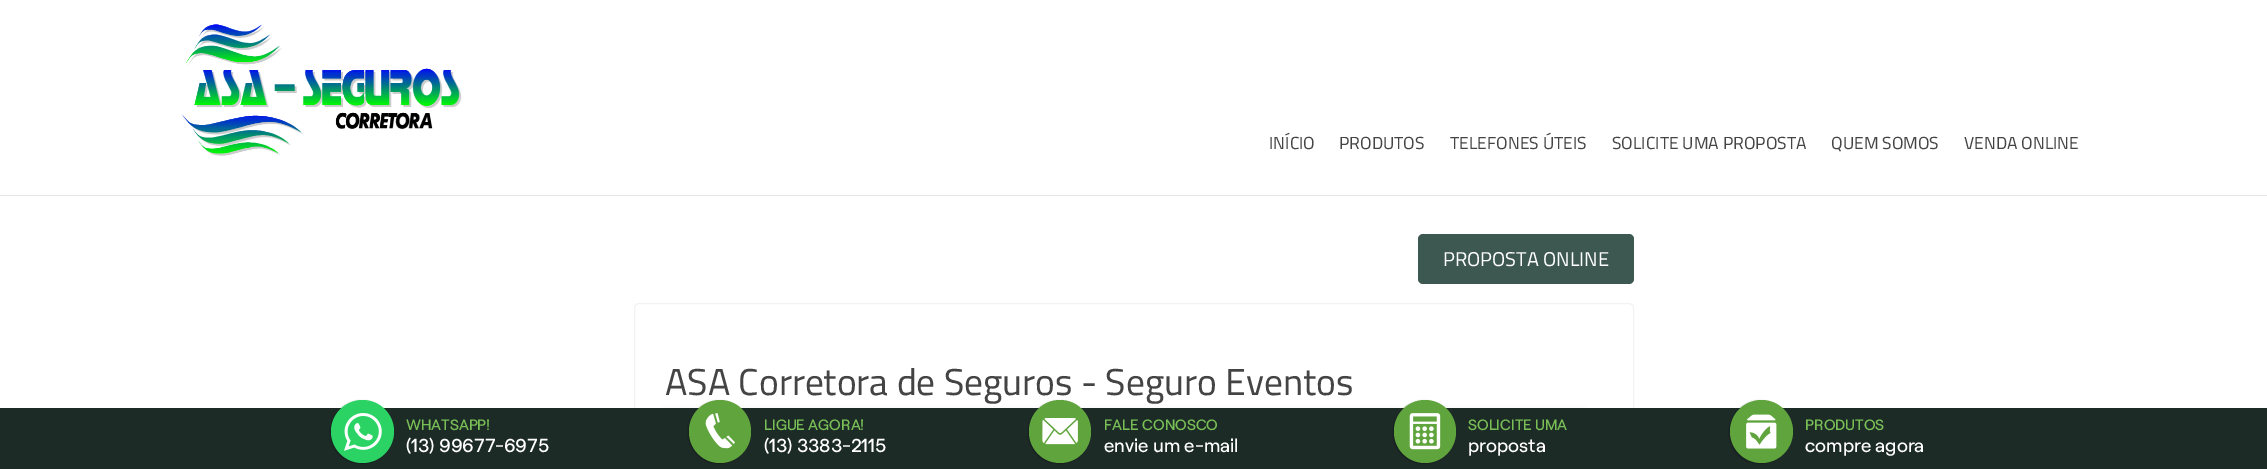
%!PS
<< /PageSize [2267 469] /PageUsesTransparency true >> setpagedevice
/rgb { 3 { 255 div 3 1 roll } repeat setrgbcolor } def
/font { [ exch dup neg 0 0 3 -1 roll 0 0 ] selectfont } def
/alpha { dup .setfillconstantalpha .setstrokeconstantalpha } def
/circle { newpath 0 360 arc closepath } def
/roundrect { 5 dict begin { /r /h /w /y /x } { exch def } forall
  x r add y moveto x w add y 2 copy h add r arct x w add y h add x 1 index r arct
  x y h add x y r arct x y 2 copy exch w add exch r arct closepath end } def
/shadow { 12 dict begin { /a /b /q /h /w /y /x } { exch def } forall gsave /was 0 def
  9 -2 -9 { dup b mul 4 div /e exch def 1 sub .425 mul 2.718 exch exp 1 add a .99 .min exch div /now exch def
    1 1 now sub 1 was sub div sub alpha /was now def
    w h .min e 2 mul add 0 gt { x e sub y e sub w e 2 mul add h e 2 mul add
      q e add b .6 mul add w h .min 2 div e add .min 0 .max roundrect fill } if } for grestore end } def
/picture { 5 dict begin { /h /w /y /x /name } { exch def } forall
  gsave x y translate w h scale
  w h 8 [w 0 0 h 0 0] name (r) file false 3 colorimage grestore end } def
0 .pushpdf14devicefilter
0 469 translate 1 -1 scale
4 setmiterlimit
255 255 255 rgb
0 0 2267 469 rectfill
230 230 230 rgb
0 195 2267 1 rectfill
(img/1.rgb) 181 24 281 132 picture
60 88 80 rgb
1418 234 216 50 5 roundrect fill
242 242 242 rgb
634.5 303.5 999 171 4.5 roundrect stroke
239 239 239 rgb
665 410 919 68 0 3 1 shadow
29 43 39 rgb
0 408 2267 61 rectfill
0 0 0 rgb
330 401 63 63 31.5 1 0.3 shadow
43 211 101 rgb
362.5 431.5 31.5 circle fill
(img/2.rgb) 344 413 38 38 picture
0 0 0 rgb
688 401 62 63 31 1 0.3 shadow
1028 401 62 63 31 1 0.3 shadow
1393 401 62 63 31 1 0.3 shadow
96 164 62 rgb
1394 400 62 63 31 roundrect fill
(img/5.rgb) 1409 413 32 37 picture
0 0 0 rgb
1729 401 62 63 31 1 0.3 shadow
96 164 62 rgb
1761.5 431.5 31.5 circle fill
(img/6.rgb) 1746 414 31 35 picture
/Cairo-Regular 17.5 font
68 68 68 rgb
[
  [(INÍCIO) 1269 149]
  [(PRODUTOS) 1339 149]
  [(TELEFONES ÚTEIS) 1450 149]
  [(SOLICITE UMA PROPOSTA) 1612 149]
  [(QUEM SOMOS) 1831 149]
  [(VENDA ONLINE) 1964 149]
] { aload pop moveto show } forall
/Cairo-Regular 20 font
255 255 255 rgb
1443 266 moveto (PROPOSTA ONLINE) show
/Cairo-Regular 37.5 font
68 68 68 rgb
665 395 moveto (ASA Corretora de Seguros - Seguro Eventos) show
/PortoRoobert-Medium 15 font
121 191 86 rgb
406 430 moveto (WHATSAPP!) show
/PortoRoobert-Medium 18.75 font
255 255 255 rgb
406 452 moveto (\(13\) 99677-6975) show
96 164 62 rgb
689 400 62 63 31 roundrect fill
(img/3.rgb) 705 413 30 36 picture
/PortoRoobert-Medium 15 font
121 191 86 rgb
764 430 moveto (LIGUE AGORA!) show
/PortoRoobert-Medium 18.75 font
255 255 255 rgb
764 452 moveto (\(13\) 3383-2115) show
96 164 62 rgb
1029 400 62 63 31 roundrect fill
(img/4.rgb) 1042 418 36 27 picture
/PortoRoobert-Medium 15 font
121 191 86 rgb
1104 430 moveto (FALE CONOSCO) show
/PortoRoobert-Medium 18.75 font
255 255 255 rgb
1104 452 moveto (envie um e-mail) show
/PortoRoobert-Medium 15 font
121 191 86 rgb
1468 430 moveto (SOLICITE UMA) show
/PortoRoobert-Medium 18.75 font
255 255 255 rgb
1468 452 moveto (proposta) show
/PortoRoobert-Medium 15 font
121 191 86 rgb
1805 430 moveto (PRODUTOS) show
/PortoRoobert-Medium 18.75 font
255 255 255 rgb
1805 452 moveto (compre agora) show
.poppdf14devicefilter showpage
